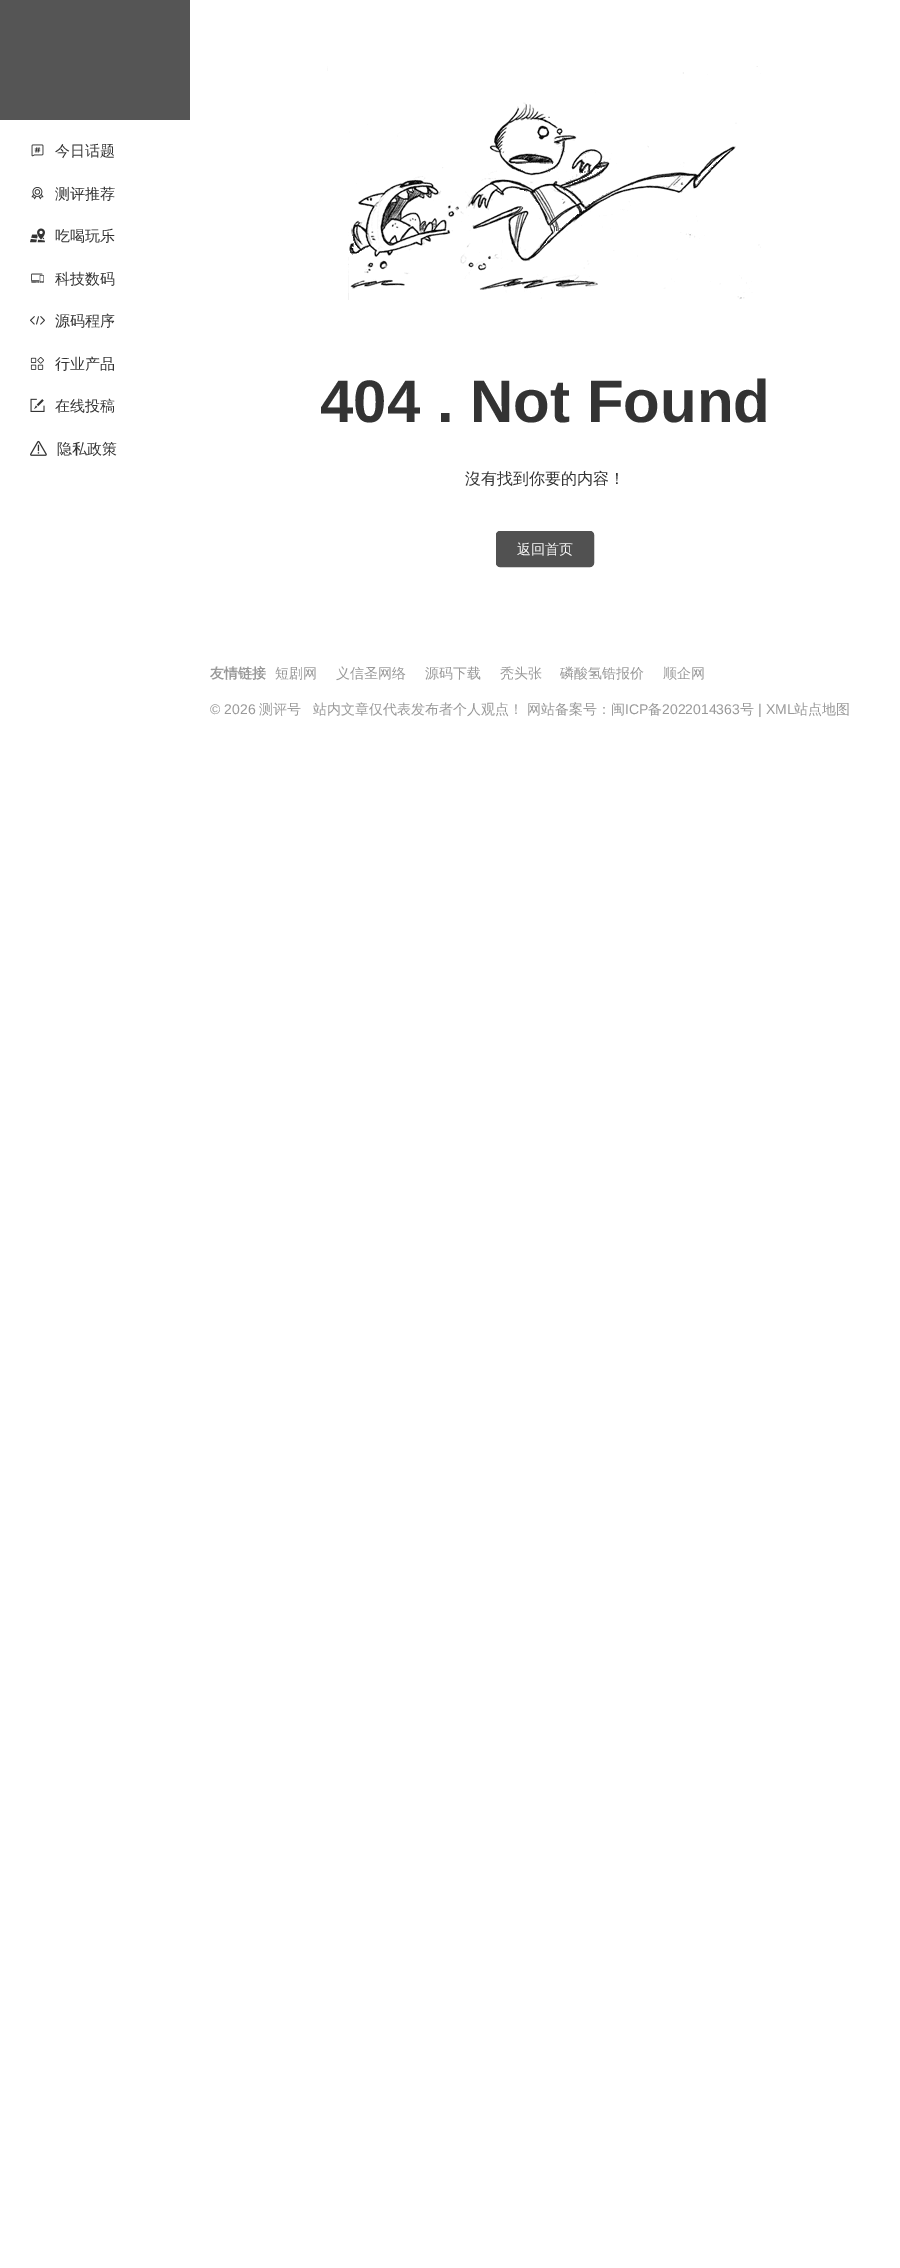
%!PS
<< /PageSize [900 2268] >> setpagedevice
/rgb { 3 { 255 div 3 1 roll } repeat setrgbcolor } def
/font { [ exch dup neg 0 0 3 -1 roll 0 0 ] selectfont } def
/roundrect { 5 dict begin { /r /h /w /y /x } { exch def } forall
  x r add y moveto x w add y 2 copy h add r arct x w add y h add x 1 index r arct
  x y h add x y r arct x y 2 copy exch w add exch r arct closepath end } def
/picture { 5 dict begin { /h /w /y /x /name } { exch def } forall
  gsave x y translate w h scale
  w h 8 [w 0 0 h 0 0] name (r) file false 3 colorimage grestore end } def
0 2268 translate 1 -1 scale
4 setmiterlimit
255 255 255 rgb
0 0 900 2268 rectfill
85 85 85 rgb
0 0 190 120 rectfill
(img/1.rgb) 31 144 13 13 picture
(img/2.rgb) 31 187 13 13 picture
(img/3.rgb) 30 228 15 15 picture
(img/4.rgb) 31 273 13 10 picture
(img/5.rgb) 30 316 15 9 picture
(img/6.rgb) 30 357 14 13 picture
(img/7.rgb) 30 398 15 14 picture
(img/8.rgb) 30 440 17 16 picture
(img/9.rgb) 327 66 434 234 picture
81 81 81 rgb
496.5 531.5 97 35 3.5 roundrect gsave fill grestore
stroke
/WenQuanYiZenHei-Medium 15 font
51 51 51 rgb
[
  [(今日话题) 55 156]
  [(测评推荐) 55 199]
  [(吃喝玩乐) 55 241]
  [(科技数码) 55 284]
  [(源码程序) 55 326]
  [(行业产品) 55 369]
  [(在线投稿) 55 411]
  [(隐私政策) 57 454]
] { aload pop moveto show } forall
/LiberationSans-Bold 60 font
320 422 moveto (404 . Not Found) show
/WenQuanYiZenHei-Medium 16 font
465 484 moveto (沒有找到你要的内容！) show
/WenQuanYiZenHei-Medium 14 font
255 255 255 rgb
517 554 moveto (返回首页) show
/WenQuanYiZenHei-Bold 14 font
153 153 153 rgb
210 678 moveto (友情链接) show
/WenQuanYiZenHei-Medium 14 font
[
  [(短剧网) 275 678]
  [(义信圣网络) 336 678]
  [(源码下载) 425 678]
  [(秃头张) 500 678]
  [(磷酸氢锆报价) 560 678]
  [(顺企网) 663 678]
] { aload pop moveto show } forall
/LiberationSans-Regular 14 font
210 714 moveto (© 2026) show
/WenQuanYiZenHei-Medium 14 font
[
  [(测评号) 259 714]
  [(站内文章仅代表发布者个人观点！) 313 714]
  [(网站备案号：闽) 527 714]
] { aload pop moveto show } forall
/LiberationSans-Regular 14 font
625 714 moveto (ICP) show
/WenQuanYiZenHei-Medium 14 font
648 714 moveto (备) show
/LiberationSans-Regular 14 font
662 714 moveto (2022014363) show
/WenQuanYiZenHei-Medium 14 font
740 714 moveto (号) show
/LiberationSans-Regular 14 font
758 714 moveto (| XML) show
/WenQuanYiZenHei-Medium 14 font
794 714 moveto (站点地图) show
showpage
